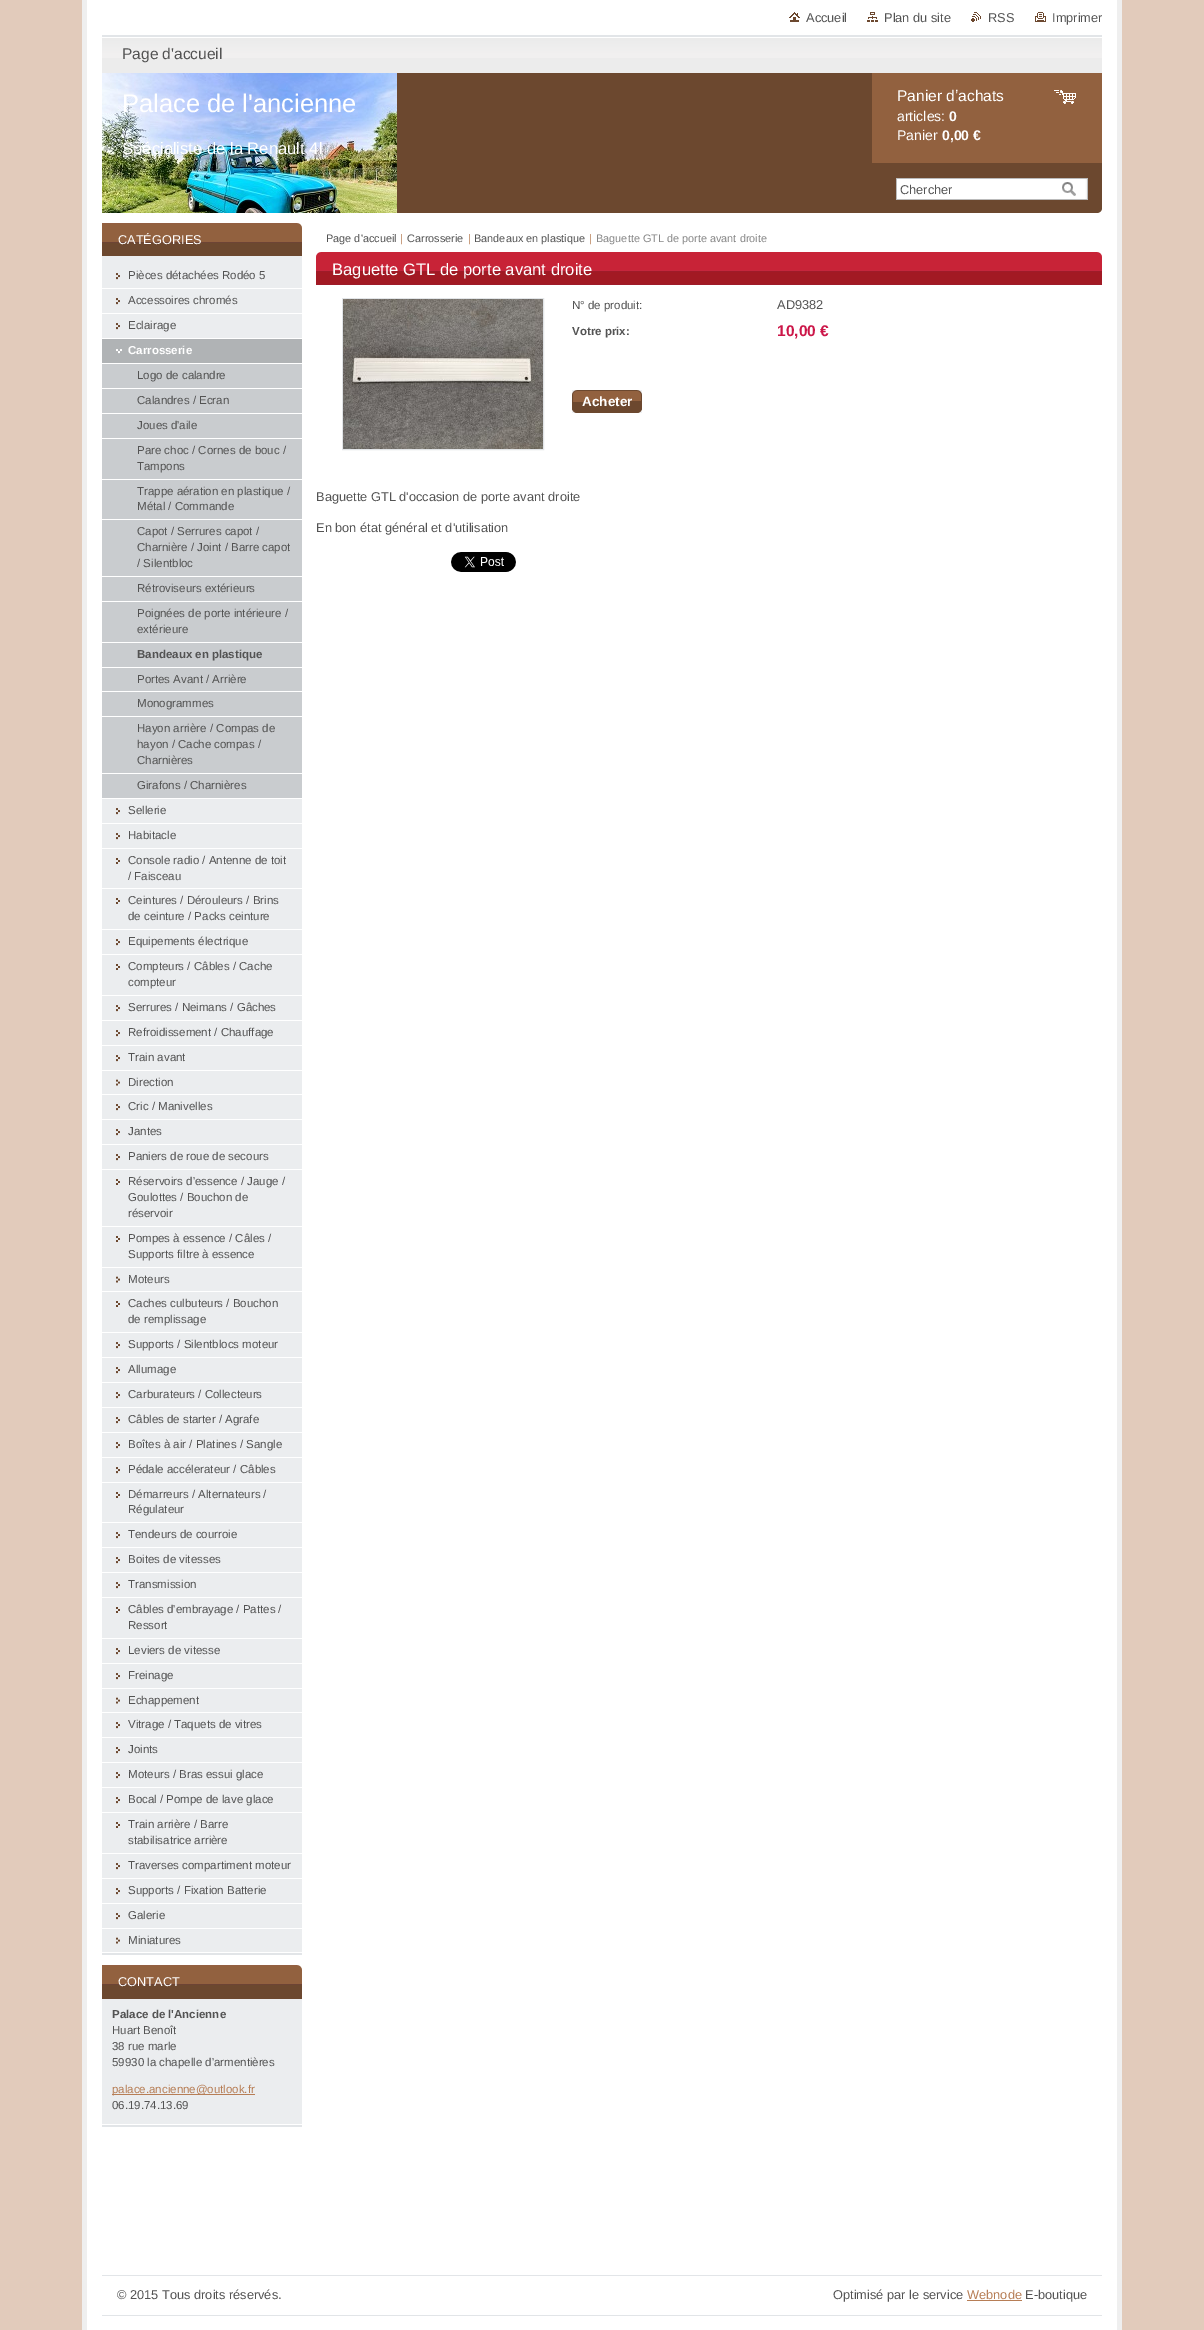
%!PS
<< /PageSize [1204 2330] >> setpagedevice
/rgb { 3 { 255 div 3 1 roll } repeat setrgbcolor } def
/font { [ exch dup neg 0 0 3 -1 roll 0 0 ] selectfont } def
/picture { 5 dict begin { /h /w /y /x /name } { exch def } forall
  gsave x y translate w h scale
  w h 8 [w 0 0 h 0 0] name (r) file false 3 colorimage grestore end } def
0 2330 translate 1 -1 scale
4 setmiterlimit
226 203 187 rgb
0 0 1204 2330 rectfill
[
  [87 0 1030 2330 255 255 255]
  [1117 0 5 2330 239 239 239]
  [82 0 5 2330 239 239 239]
] { aload pop rgb rectfill } forall
(img/1.rgb) 789 12 11 10 picture
(img/2.rgb) 867 12 11 10 picture
(img/3.rgb) 971 12 10 10 picture
(img/4.rgb) 1035 12 11 10 picture
236 236 236 rgb
102 58 1000 15 rectfill
(img/5.rgb) 102 35 1000 23 picture
108 72 47 rgb
397 73 475 140 rectfill
(img/6.rgb) 102 73 295 140 picture
146 97 63 rgb
872 73 230 90 rectfill
(img/7.rgb) 1054 90 22 14 picture
(img/8.rgb) 872 163 230 50 picture
(img/9.rgb) 1062 182 17 14 picture
[
  [102 1953 200 2 226 229 232]
  [102 256 200 1696 235 237 239]
  [102 243 200 13 108 72 47]
] { aload pop rgb rectfill } forall
(img/10.rgb) 102 223 200 20 picture
(img/11.rgb) 116 273 4 7 picture
255 255 255 rgb
102 288 200 1 rectfill
(img/11.rgb) 116 298 4 7 picture
102 313 200 1 rectfill
(img/11.rgb) 116 323 4 7 picture
102 338 200 1 rectfill
176 179 181 rgb
102 339 200 24 rectfill
(img/12.rgb) 116 349 6 5 picture
[
  [102 363 200 1 255 255 255]
  [102 364 200 434 201 204 207]
  [102 388 200 1 255 255 255]
  [102 413 200 1 255 255 255]
  [102 438 200 1 255 255 255]
  [102 479 200 1 255 255 255]
  [102 519 200 1 255 255 255]
  [102 576 200 1 255 255 255]
  [102 601 200 1 255 255 255]
  [102 642 200 1 255 255 255]
  [102 667 200 1 255 255 255]
  [102 691 200 1 255 255 255]
  [102 716 200 1 255 255 255]
  [102 773 200 1 255 255 255]
  [102 798 200 1 255 255 255]
] { aload pop rgb rectfill } forall
(img/11.rgb) 116 808 4 7 picture
102 823 200 1 rectfill
(img/11.rgb) 116 833 4 7 picture
102 848 200 1 rectfill
(img/13.rgb) 116 858 4 6 picture
102 888 200 1 rectfill
(img/13.rgb) 116 898 4 6 picture
102 929 200 1 rectfill
(img/11.rgb) 116 939 4 7 picture
102 954 200 1 rectfill
(img/13.rgb) 116 964 4 6 picture
102 995 200 1 rectfill
(img/11.rgb) 116 1005 4 7 picture
102 1020 200 1 rectfill
(img/11.rgb) 116 1030 4 7 picture
102 1045 200 1 rectfill
(img/11.rgb) 116 1055 4 7 picture
102 1070 200 1 rectfill
(img/14.rgb) 116 1079 4 7 picture
102 1094 200 1 rectfill
(img/11.rgb) 116 1104 4 7 picture
102 1119 200 1 rectfill
(img/11.rgb) 116 1129 4 7 picture
102 1144 200 1 rectfill
(img/11.rgb) 116 1154 4 7 picture
102 1169 200 1 rectfill
(img/13.rgb) 116 1179 4 6 picture
102 1226 200 1 rectfill
(img/13.rgb) 116 1236 4 6 picture
102 1267 200 1 rectfill
(img/14.rgb) 116 1276 4 7 picture
102 1291 200 1 rectfill
(img/13.rgb) 116 1301 4 6 picture
102 1332 200 1 rectfill
(img/11.rgb) 116 1342 4 7 picture
102 1357 200 1 rectfill
(img/11.rgb) 116 1367 4 7 picture
102 1382 200 1 rectfill
(img/11.rgb) 116 1392 4 7 picture
102 1407 200 1 rectfill
(img/11.rgb) 116 1417 4 7 picture
102 1432 200 1 rectfill
(img/11.rgb) 116 1442 4 7 picture
102 1457 200 1 rectfill
(img/11.rgb) 116 1467 4 7 picture
102 1482 200 1 rectfill
(img/13.rgb) 116 1492 4 6 picture
102 1522 200 1 rectfill
(img/11.rgb) 116 1532 4 7 picture
102 1547 200 1 rectfill
(img/11.rgb) 116 1557 4 7 picture
102 1572 200 1 rectfill
(img/11.rgb) 116 1582 4 7 picture
102 1597 200 1 rectfill
(img/13.rgb) 116 1607 4 6 picture
102 1638 200 1 rectfill
(img/11.rgb) 116 1648 4 7 picture
102 1663 200 1 rectfill
(img/11.rgb) 116 1673 4 7 picture
102 1688 200 1 rectfill
(img/14.rgb) 116 1697 4 7 picture
102 1712 200 1 rectfill
(img/11.rgb) 116 1722 4 7 picture
102 1737 200 1 rectfill
(img/11.rgb) 116 1747 4 7 picture
102 1762 200 1 rectfill
(img/11.rgb) 116 1772 4 7 picture
102 1787 200 1 rectfill
(img/11.rgb) 116 1797 4 7 picture
102 1812 200 1 rectfill
(img/13.rgb) 116 1822 4 6 picture
102 1853 200 1 rectfill
(img/11.rgb) 116 1863 4 7 picture
102 1878 200 1 rectfill
(img/11.rgb) 116 1888 4 7 picture
102 1903 200 1 rectfill
(img/11.rgb) 116 1913 4 7 picture
102 1928 200 1 rectfill
(img/14.rgb) 116 1937 4 7 picture
[
  [102 2125 200 2 226 229 232]
  [102 1999 200 125 235 237 239]
  [102 1985 200 14 108 72 47]
] { aload pop rgb rectfill } forall
(img/10.rgb) 102 1965 200 20 picture
183 126 86 rgb
112 2094 143 1 rectfill
(img/15.rgb) 316 252 786 33 picture
(img/16.rgb) 1097 252 5 5 picture
226 229 232 rgb
342.5 298.5 201 151 rectstroke
(img/17.rgb) 343 299 200 150 picture
(img/18.rgb) 572 390 65 12 picture
(img/19.rgb) 637 390 5 11 picture
(img/20.rgb) 572 402 50 11 picture
(img/21.rgb) 622 401 20 12 picture
(img/22.rgb) 451 552 65 20 picture
[
  [102 2275 1000 1 226 229 232]
  [102 2315 1000 1 226 229 232]
  [967 2300 55 1 183 126 86]
] { aload pop rgb rectfill } forall
/LiberationSans-Regular 12.8 font
83 83 83 rgb
[
  [(Accueil) 806 22]
  [(Plan du site) 884 22]
  [(RSS) 988 22]
  [(Imprimer) 1052 22]
] { aload pop moveto show } forall
/LiberationSans-Regular 15.5 font
122 59 moveto (Page d'accueil) show
/LiberationSans-Regular 25.5 font
255 255 255 rgb
122 112 moveto (Palace de l'ancienne) show
/LiberationSans-Regular 16.6 font
122 154 moveto (Spécialiste de la Renault 4l) show
/LiberationSans-Regular 15.5 font
897 101 moveto (Panier dʼachats) show
/LiberationSans-Regular 14 font
897 121 moveto (articles:) show
/LiberationSans-Bold 14 font
949 121 moveto (0) show
/LiberationSans-Regular 14 font
897 140 moveto (Panier) show
/LiberationSans-Bold 14 font
942 140 moveto (0,00 €) show
/LiberationSans-Regular 12.8 font
83 83 83 rgb
900 194 moveto (Chercher) show
/LiberationSans-Regular 12.75 font
255 255 255 rgb
118 244 moveto (CATÉGORIES) show
/LiberationSans-Regular 11.5 font
83 83 83 rgb
[
  [(Pièces détachées Rodéo 5) 128 279]
  [(Accessoires chromés) 128 304]
  [(Eclairage) 128 329]
] { aload pop moveto show } forall
/LiberationSans-Bold 11.5 font
255 255 255 rgb
128 354 moveto (Carrosserie) show
/LiberationSans-Regular 11.5 font
83 83 83 rgb
[
  [(Logo de calandre) 137 379]
  [(Calandres / Ecran) 137 404]
  [(Joues d'aile) 137 429]
  [(Pare choc / Cornes de bouc /) 137 454]
  [(Tampons) 137 470]
  [(Trappe aération en plastique /) 137 495]
  [(Métal / Commande) 137 510]
  [(Capot / Serrures capot /) 137 535]
  [(Charnière / Joint / Barre capot) 137 551]
  [(/ Silentbloc) 137 567]
  [(Rétroviseurs extérieurs) 137 592]
  [(Poignées de porte intérieure /) 137 617]
  [(extérieure) 137 633]
] { aload pop moveto show } forall
/LiberationSans-Bold 11.5 font
137 658 moveto (Bandeaux en plastique) show
/LiberationSans-Regular 11.5 font
[
  [(Portes Avant / Arrière) 137 683]
  [(Monogrammes) 137 707]
  [(Hayon arrière / Compas de) 137 732]
  [(hayon / Cache compas /) 137 748]
  [(Charnières) 137 764]
  [(Girafons / Charnières) 137 789]
  [(Sellerie) 128 814]
  [(Habitacle) 128 839]
  [(Console radio / Antenne de toit) 128 864]
  [(/ Faisceau) 128 880]
  [(Ceintures / Dérouleurs / Brins) 128 904]
  [(de ceinture / Packs ceinture) 128 920]
  [(Equipements électrique) 128 945]
  [(Compteurs / Câbles / Cache) 128 970]
  [(compteur) 128 986]
  [(Serrures / Neimans / Gâches) 128 1011]
  [(Refroidissement / Chauffage) 128 1036]
  [(Train avant) 128 1061]
  [(Direction) 128 1086]
  [(Cric / Manivelles) 128 1110]
  [(Jantes) 128 1135]
  [(Paniers de roue de secours) 128 1160]
  [(Réservoirs d'essence / Jauge /) 128 1185]
  [(Goulottes / Bouchon de) 128 1201]
  [(réservoir) 128 1217]
  [(Pompes à essence / Câles /) 128 1242]
  [(Supports filtre à essence) 128 1258]
  [(Moteurs) 128 1283]
  [(Caches culbuteurs / Bouchon) 128 1307]
  [(de remplissage) 128 1323]
  [(Supports / Silentblocs moteur) 128 1348]
  [(Allumage) 128 1373]
  [(Carburateurs / Collecteurs) 128 1398]
  [(Câbles de starter / Agrafe) 128 1423]
  [(Boîtes à air / Platines / Sangle) 128 1448]
  [(Pédale accélerateur / Câbles) 128 1473]
  [(Démarreurs / Alternateurs /) 128 1498]
  [(Régulateur) 128 1513]
  [(Tendeurs de courroie) 128 1538]
  [(Boites de vitesses) 128 1563]
  [(Transmission) 128 1588]
  [(Câbles d'embrayage / Pattes /) 128 1613]
  [(Ressort) 128 1629]
  [(Leviers de vitesse) 128 1654]
  [(Freinage) 128 1679]
  [(Echappement) 128 1704]
  [(Vitrage / Taquets de vitres) 128 1728]
  [(Joints) 128 1753]
  [(Moteurs / Bras essui glace) 128 1778]
  [(Bocal / Pompe de lave glace) 128 1803]
  [(Train arrière / Barre) 128 1828]
  [(stabilisatrice arrière) 128 1844]
  [(Traverses compartiment moteur) 128 1869]
  [(Supports / Fixation Batterie) 128 1894]
  [(Galerie) 128 1919]
  [(Miniatures) 128 1944]
] { aload pop moveto show } forall
/LiberationSans-Regular 12.75 font
255 255 255 rgb
118 1986 moveto (CONTACT) show
/LiberationSans-Bold 11.5 font
83 83 83 rgb
112 2018 moveto (Palace de l'Ancienne) show
/LiberationSans-Regular 11.5 font
[
  [(Huart Benoît) 112 2034]
  [(38 rue marle) 112 2050]
  [(59930 la chapelle d'armentières) 112 2066]
] { aload pop moveto show } forall
183 126 86 rgb
112 2093 moveto (palace.ancienne@outlook.fr) show
83 83 83 rgb
112 2109 moveto (06.19.74.13.69) show
/LiberationSans-Regular 10.9 font
326 242 moveto (Page d'accueil) show
183 126 86 rgb
400 242 moveto (|) show
83 83 83 rgb
407 242 moveto (Carrosserie) show
183 126 86 rgb
468 242 moveto (|) show
83 83 83 rgb
474 242 moveto (Bandeaux en plastique) show
183 126 86 rgb
589 242 moveto (|) show
135 135 135 rgb
596 242 moveto (Baguette GTL de porte avant droite) show
/LiberationSans-Regular 16.6 font
255 255 255 rgb
332 275 moveto (Baguette GTL de porte avant droite) show
/LiberationSans-Regular 11.5 font
83 83 83 rgb
572 309 moveto (N° de produit:) show
/LiberationSans-Regular 12.8 font
777 309 moveto (AD9382) show
/LiberationSans-Bold 11.5 font
572 335 moveto (Votre prix:) show
/LiberationSans-Bold 15.5 font
204 23 73 rgb
777 336 moveto (10,00 €) show
/LiberationSans-Bold 13.5 font
255 255 255 rgb
582 406 moveto (Acheter) show
/LiberationSans-Regular 12.8 font
83 83 83 rgb
[
  [(Baguette GTL d'occasion de porte avant droite) 316 501]
  [(En bon état général et d'utilisation) 316 532]
  [(© 2015 Tous droits réservés.) 117 2299]
  [(Optimisé par le service) 833 2299]
] { aload pop moveto show } forall
183 126 86 rgb
967 2299 moveto (Webnode) show
83 83 83 rgb
1025 2299 moveto (E-boutique) show
showpage
